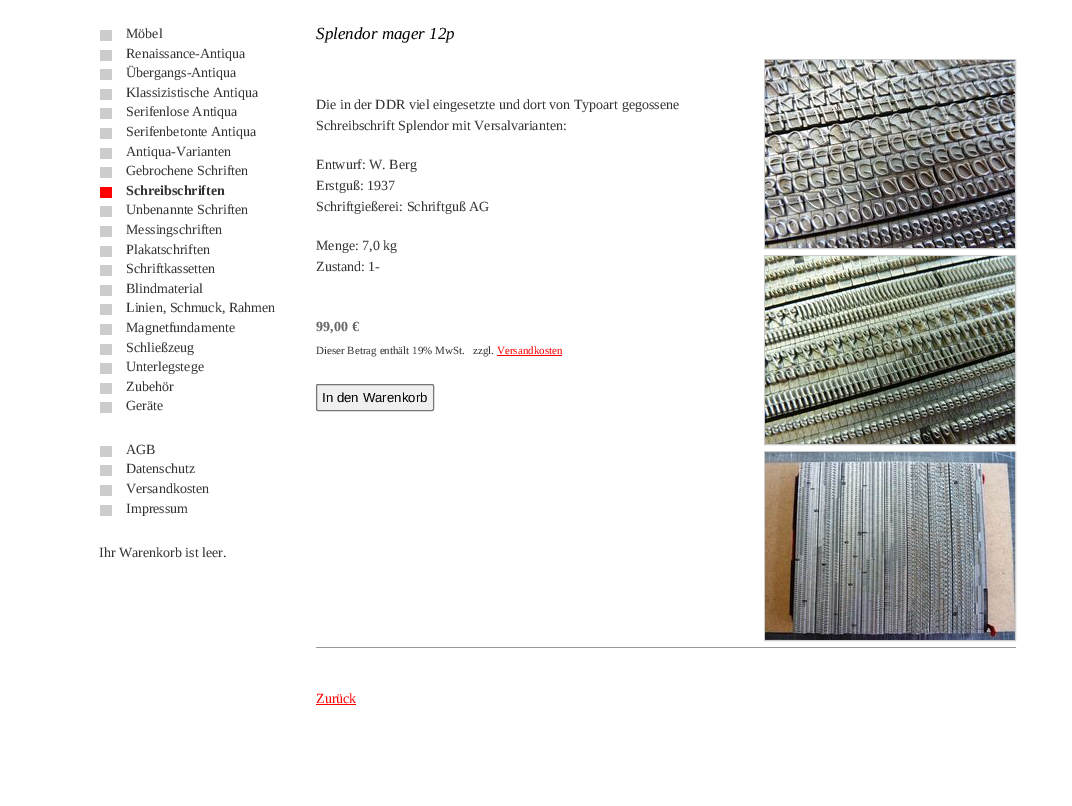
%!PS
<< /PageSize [1072 806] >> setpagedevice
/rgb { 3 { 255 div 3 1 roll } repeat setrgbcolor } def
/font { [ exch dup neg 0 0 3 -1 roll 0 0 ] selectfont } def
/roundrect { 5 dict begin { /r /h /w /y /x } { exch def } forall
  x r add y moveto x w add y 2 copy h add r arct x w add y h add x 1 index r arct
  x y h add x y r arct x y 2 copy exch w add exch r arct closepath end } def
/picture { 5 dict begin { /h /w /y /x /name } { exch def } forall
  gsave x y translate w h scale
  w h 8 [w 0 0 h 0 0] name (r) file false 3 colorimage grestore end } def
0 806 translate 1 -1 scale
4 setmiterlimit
255 255 255 rgb
0 0 1072 806 rectfill
[
  [100 30 12 11 204 204 204]
  [100 50 12 11 204 204 204]
  [100 69 12 11 204 204 204]
  [100 89 12 11 204 204 204]
  [100 108 12 11 204 204 204]
  [100 128 12 11 204 204 204]
  [100 148 12 11 204 204 204]
  [100 167 12 11 204 204 204]
  [100 187 12 11 255 0 0]
  [100 206 12 11 204 204 204]
  [100 226 12 11 204 204 204]
  [100 246 12 11 204 204 204]
  [100 265 12 11 204 204 204]
  [100 285 12 11 204 204 204]
  [100 304 12 11 204 204 204]
  [100 324 12 11 204 204 204]
  [100 344 12 11 204 204 204]
  [100 363 12 11 204 204 204]
  [100 383 12 11 204 204 204]
  [100 402 12 11 204 204 204]
  [100 446 12 11 204 204 204]
  [100 465 12 11 204 204 204]
  [100 485 12 11 204 204 204]
  [100 505 12 11 204 204 204]
  [316 647 700 1 153 153 153]
] { aload pop rgb rectfill } forall
204 204 204 rgb
764.5 59.5 251 189 rectstroke
(img/1.rgb) 765 60 250 188 picture
764.5 255.5 251 189 rectstroke
(img/2.rgb) 765 256 250 188 picture
764.5 451.5 251 189 rectstroke
(img/3.rgb) 765 452 250 188 picture
255 0 0 rgb
497 355 65 1 rectfill
239 239 239 rgb
316.5 384.5 117 26 1.5 roundrect gsave fill grestore
118 118 118 rgb
stroke
255 0 0 rgb
316 704 40 1 rectfill
/LiberationSerif-Regular 14 font
51 51 51 rgb
[
  [(Möbel) 126 38]
  [(Renaissance-Antiqua) 126 58]
  [(Übergangs-Antiqua) 126 77]
  [(Klassizistische Antiqua) 126 97]
  [(Serifenlose Antiqua) 126 116]
  [(Serifenbetonte Antiqua) 126 136]
  [(Antiqua-Varianten) 126 156]
  [(Gebrochene Schriften) 126 175]
] { aload pop moveto show } forall
/LiberationSerif-Bold 14 font
126 195 moveto (Schreibschriften) show
/LiberationSerif-Regular 14 font
[
  [(Unbenannte Schriften) 126 214]
  [(Messingschriften) 126 234]
  [(Plakatschriften) 126 254]
  [(Schriftkassetten) 126 273]
  [(Blindmaterial) 126 293]
  [(Linien, Schmuck, Rahmen) 126 312]
  [(Magnetfundamente) 126 332]
  [(Schließzeug) 126 352]
  [(Unterlegstege) 126 371]
  [(Zubehör) 126 391]
  [(Geräte) 126 410]
  [(AGB) 126 454]
  [(Datenschutz) 126 473]
  [(Versandkosten) 126 493]
  [(Impressum) 126 513]
  [(Ihr Warenkorb ist leer.) 99 557]
] { aload pop moveto show } forall
/LiberationSerif-Italic 17 font
0 0 0 rgb
316 39 moveto (Splendor mager 12p) show
/LiberationSerif-Regular 14 font
51 51 51 rgb
[
  [(Die in der DDR viel eingesetzte und dort von Typoart gegossene) 316 109]
  [(Schreibschrift Splendor mit Versalvarianten:) 316 130]
  [(Entwurf: W. Berg) 316 169]
  [(Erstguß: 1937) 316 190]
  [(Schriftgießerei: Schriftguß AG) 316 211]
  [(Menge: 7,0 kg) 316 250]
  [(Zustand: 1-) 316 271]
] { aload pop moveto show } forall
/LiberationSerif-Bold 14 font
102 102 102 rgb
316 331 moveto (99,00) show
352 331 moveto (€) show
/LiberationSerif-Regular 11 font
51 51 51 rgb
316 354 moveto (Dieser Betrag enthält 19% MwSt.   zzgl.) show
255 0 0 rgb
497 354 moveto (Versandkosten) show
/LiberationSans-Regular 13.25 font
0 0 0 rgb
322 402 moveto (In den Warenkorb) show
/LiberationSerif-Regular 14 font
255 0 0 rgb
316 703 moveto (Zurück) show
showpage
